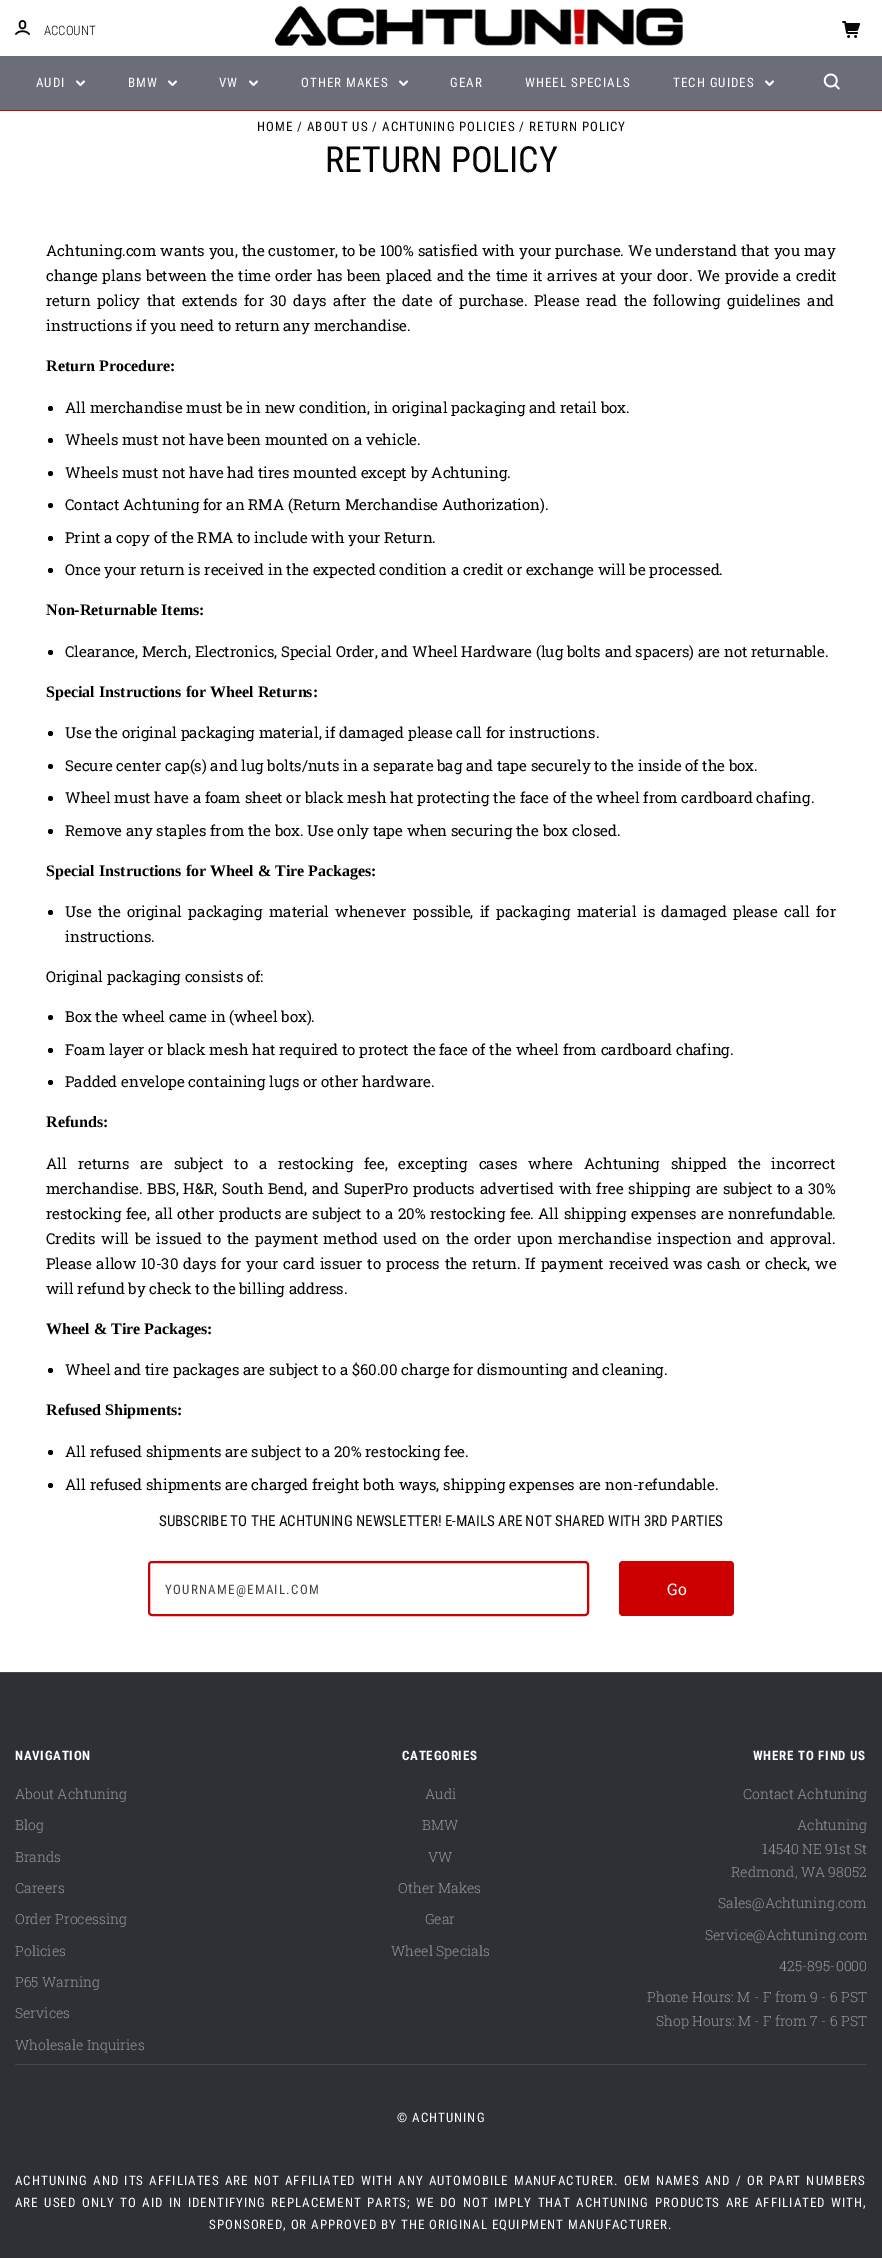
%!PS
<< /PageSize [882 2258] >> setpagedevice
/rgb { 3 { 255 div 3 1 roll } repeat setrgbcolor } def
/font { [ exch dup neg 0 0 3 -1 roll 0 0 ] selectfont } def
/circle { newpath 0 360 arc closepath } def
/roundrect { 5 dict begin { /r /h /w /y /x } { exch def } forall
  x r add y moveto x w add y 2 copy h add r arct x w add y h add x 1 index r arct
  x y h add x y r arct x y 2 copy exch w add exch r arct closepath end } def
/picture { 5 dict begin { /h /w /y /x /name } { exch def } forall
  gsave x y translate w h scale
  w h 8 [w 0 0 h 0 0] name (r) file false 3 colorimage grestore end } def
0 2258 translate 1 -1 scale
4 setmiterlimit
255 255 255 rgb
0 0 882 2258 rectfill
204 0 0 rgb
0 110 882 1 rectfill
(img/1.rgb) 15 20 15 15 picture
(img/2.rgb) 275 6 408 40 picture
(img/3.rgb) 842 21 19 17 picture
107 110 121 rgb
0 56 882 54 rectfill
(img/4.rgb) 76 80 9 6 picture
(img/4.rgb) 168 80 9 6 picture
(img/4.rgb) 249 80 9 6 picture
(img/4.rgb) 399 80 9 6 picture
(img/4.rgb) 765 80 9 6 picture
(img/5.rgb) 823 73 17 17 picture
7 6 6 rgb
50.5 408.5 2.5 circle fill
50.5 440.5 2.5 circle fill
50.5 473.5 2.5 circle fill
50.5 505.5 2.5 circle fill
50.5 538.5 2.5 circle fill
50.5 570.5 2.5 circle fill
50.5 652.5 2.5 circle fill
50.5 733.5 2.5 circle fill
50.5 766.5 2.5 circle fill
50.5 798.5 2.5 circle fill
50.5 831.5 2.5 circle fill
50.5 912.5 2.5 circle fill
50.5 1017.5 2.5 circle fill
50.5 1050.5 2.5 circle fill
50.5 1082.5 2.5 circle fill
50.5 1370.5 2.5 circle fill
50.5 1452.5 2.5 circle fill
50.5 1485.5 2.5 circle fill
204 0 0 rgb
2 setlinewidth
149 1562 439 53 3 roundrect stroke
619 1561 115 55 4 roundrect fill
[
  [0 1673 882 585 46 48 54]
  [0 1672 882 1 67 69 74]
  [15 2064 852 1 67 69 74]
] { aload pop rgb rectfill } forall
/RobotoCondensed-Light 13 font
7 6 6 rgb
44 35 moveto (ACCOUNT) show
/RobotoCondensed-Regular 13 font
255 255 255 rgb
36 87 moveto 1 0 (AUDI) ashow
128 87 moveto 1 0 (BMW) ashow
219 87 moveto 1 0 (VW) ashow
301 87 moveto 1 0 (OTHER MAKES) ashow
450 87 moveto 1 0 (GEAR) ashow
525 87 moveto 1 0 (WHEEL SPECIALS) ashow
673 87 moveto 1 0 (TECH GUIDES) ashow
7 6 6 rgb
257 131 moveto 1 0 (HOME / ABOUT US / ACHTUNING POLICIES / RETURN POLICY) ashow
/RobotoCondensed-Regular 36 font
325 172 moveto (RETURN POLICY) show
/RobotoSlab-Regular 15 font
46 256 moveto 0.3 0 32 (Achtuning.com wants you, the customer, to be 100% satisfied with your purchase. We understand that you may) widthshow
46 281 moveto 0.9 0 32 (change plans between the time order has been placed and the time it arrives at your door. We provide a credit) widthshow
46 306 moveto 2.75 0 32 (return policy that extends for 30 days after the date of purchase. Please read the following guidelines and) widthshow
46 331 moveto (instructions if you need to return any merchandise.) show
/LiberationSerif-Bold 16 font
0 0 0 rgb
46 371 moveto (Return Procedure:) show
/RobotoSlab-Regular 15 font
7 6 6 rgb
[
  [(All merchandise must be in new condition, in original packaging and retail box.) 65 413]
  [(Wheels must not have been mounted on a vehicle.) 65 445]
  [(Wheels must not have had tires mounted except by Achtuning.) 65 478]
  [(Contact Achtuning for an RMA \(Return Merchandise Authorization\).) 65 510]
  [(Print a copy of the RMA to include with your Return.) 65 543]
  [(Once your return is received in the expected condition a credit or exchange will be processed.) 65 575]
] { aload pop moveto show } forall
/LiberationSerif-Bold 16 font
0 0 0 rgb
46 615 moveto (Non-Returnable Items:) show
/RobotoSlab-Regular 15 font
7 6 6 rgb
65 657 moveto (Clearance, Merch, Electronics, Special Order, and Wheel Hardware \(lug bolts and spacers\) are not returnable.) show
/LiberationSerif-Bold 16 font
0 0 0 rgb
46 697 moveto (Special Instructions for Wheel Returns:) show
/RobotoSlab-Regular 15 font
7 6 6 rgb
[
  [(Use the original packaging material, if damaged please call for instructions.) 65 738]
  [(Secure center cap\(s\) and lug bolts/nuts in a separate bag and tape securely to the inside of the box.) 65 771]
  [(Wheel must have a foam sheet or black mesh hat protecting the face of the wheel from cardboard chafing.) 65 803]
  [(Remove any staples from the box. Use only tape when securing the box closed.) 65 836]
] { aload pop moveto show } forall
/LiberationSerif-Bold 16 font
0 0 0 rgb
46 876 moveto (Special Instructions for Wheel & Tire Packages:) show
/RobotoSlab-Regular 15 font
7 6 6 rgb
65 917 moveto 2.6 0 32 (Use the original packaging material whenever possible, if packaging material is damaged please call for) widthshow
[
  [(instructions.) 65 942]
  [(Original packaging consists of:) 46 982]
  [(Box the wheel came in \(wheel box\).) 65 1022]
  [(Foam layer or black mesh hat required to protect the face of the wheel from cardboard chafing.) 65 1055]
  [(Padded envelope containing lugs or other hardware.) 65 1087]
] { aload pop moveto show } forall
/LiberationSerif-Bold 16 font
0 0 0 rgb
46 1127 moveto (Refunds:) show
/RobotoSlab-Regular 15 font
7 6 6 rgb
46 1169 moveto 7.1 0 32 (All returns are subject to a restocking fee, excepting cases where Achtuning shipped the incorrect) widthshow
46 1194 moveto 1 0 32 (merchandise. BBS, H&R, South Bend, and SuperPro products advertised with free shipping are subject to a 30%) widthshow
46 1219 moveto 1 0 32 (restocking fee, all other products) widthshow
285 1219 moveto 1 0 32 (are subject to a 20% restocking fee) widthshow
530 1219 moveto 0.9 0 32 (. All shipping expenses are nonrefundable.) widthshow
46 1244 moveto 1.8 0 32 (Credits will be issued to the payment method used on the order upon merchandise inspection and approval.) widthshow
46 1269 moveto 1.2 0 32 (Please allow 10-30 days for your card issuer to process the return. If payment received was cash or check, we) widthshow
46 1294 moveto (will refund by check to the billing address.) show
/LiberationSerif-Bold 16 font
0 0 0 rgb
46 1334 moveto (Wheel & Tire Packages:) show
/RobotoSlab-Regular 15 font
7 6 6 rgb
65 1375 moveto (Wheel and tire packages are subject to a $60.00 charge for dismounting and cleaning.) show
/LiberationSerif-Bold 16 font
0 0 0 rgb
46 1415 moveto (Refused Shipments:) show
/RobotoSlab-Regular 15 font
7 6 6 rgb
65 1457 moveto (All refused shipments are subject to a 20% restocking fee.) show
65 1490 moveto (All refused shipments are charged freight both ways, shipping expenses are non-refundable.) show
/RobotoCondensed-Regular 15 font
159 1526 moveto (SUBSCRIBE TO THE ACHTUNING NEWSLETTER! E-MAILS ARE NOT SHARED WITH 3RD PARTIES) show
/RobotoCondensed-Regular 13 font
69 67 67 rgb
165 1594 moveto 1.25 0 (YOURNAME@EMAIL.COM) ashow
/RobotoSlab-Regular 16 font
255 255 255 rgb
667 1595 moveto (Go) show
/RobotoCondensed-Bold 13 font
15 1760 moveto 0.75 0 (NAVIGATION) ashow
/RobotoSlab-Light 14 font
151 152 155 rgb
[
  [(About Achtuning) 15 1799]
  [(Blog) 15 1830]
  [(Brands) 15 1862]
  [(Careers) 15 1893]
  [(Order Processing) 15 1924]
  [(Policies) 15 1956]
  [(P65 Warning) 15 1987]
  [(Services) 15 2018]
  [(Wholesale Inquiries) 15 2050]
] { aload pop moveto show } forall
/RobotoCondensed-Bold 13 font
255 255 255 rgb
402 1760 moveto 0.75 0 (CATEGORIES) ashow
/RobotoSlab-Light 14 font
151 152 155 rgb
[
  [(Audi) 425 1799]
  [(BMW) 422 1830]
  [(VW) 428 1862]
  [(Other Makes) 398 1893]
  [(Gear) 425 1924]
  [(Wheel Specials) 391 1956]
] { aload pop moveto show } forall
/RobotoCondensed-Bold 13 font
255 255 255 rgb
753 1760 moveto 0.75 0 (WHERE TO FIND US) ashow
/RobotoSlab-Light 14 font
151 152 155 rgb
[
  [(Contact Achtuning) 743 1799]
  [(Achtuning) 797 1830]
  [(14540 NE 91st St) 762 1854]
  [(Redmond, WA 98052) 731 1877]
  [(Sales@Achtuning.com) 718 1908]
  [(Service@Achtuning.com) 705 1940]
  [(425-895-0000) 779 1971]
  [(Phone Hours: M - F from 9 - 6 PST) 647 2002]
  [(Shop Hours: M - F from 7 - 6 PST) 656 2026]
] { aload pop moveto show } forall
/RobotoCondensed-Regular 13 font
255 255 255 rgb
397 2122 moveto 1 0 (© ACHTUNING) ashow
15 2185 moveto 1.25 0 32 1 0 (ACHTUNING AND ITS AFFILIATES ARE NOT AFFILIATED WITH ANY AUTOMOBILE MANUFACTURER. OEM NAMES AND / OR PART NUMBERS) awidthshow
15 2207 moveto 1.5 0 32 1 0 (ARE USED ONLY TO AID IN IDENTIFYING REPLACEMENT PARTS; WE DO NOT IMPLY THAT ACHTUNING PRODUCTS ARE AFFILIATED WITH,) awidthshow
209 2229 moveto 1 0 (SPONSORED, OR APPROVED BY THE ORIGINAL EQUIPMENT MANUFACTURER.) ashow
showpage
